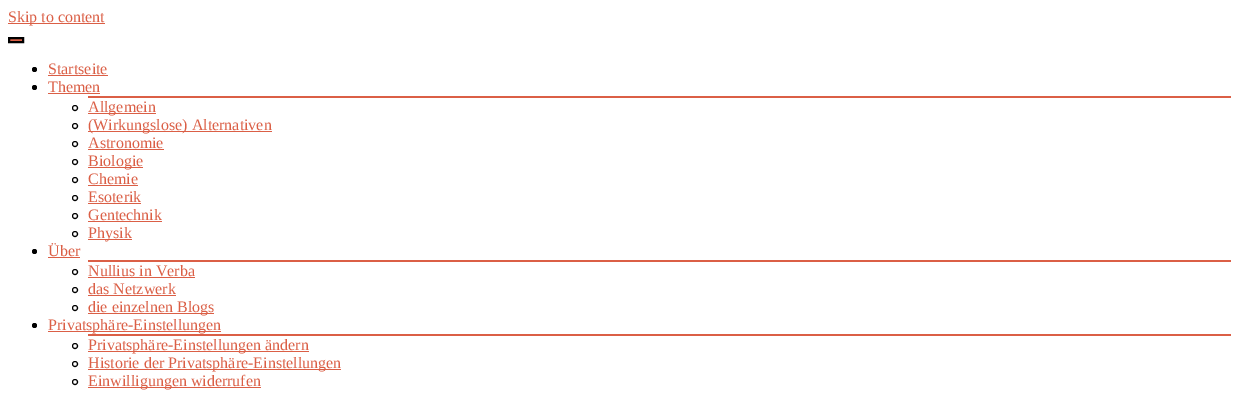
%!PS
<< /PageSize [1239 405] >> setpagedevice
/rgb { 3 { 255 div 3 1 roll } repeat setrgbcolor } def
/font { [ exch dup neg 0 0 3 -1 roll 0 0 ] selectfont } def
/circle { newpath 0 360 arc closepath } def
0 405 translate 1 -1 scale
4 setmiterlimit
255 255 255 rgb
0 0 1239 405 rectfill
219 95 70 rgb
8 23 97 1 rectfill
9 38 moveto 23 38 lineto 23 42 lineto 9 42 lineto closepath gsave fill grestore
0 0 0 rgb
2 setlinewidth
stroke
34.5 69.5 2.5 circle fill
219 95 70 rgb
48 75 60 1 rectfill
0 0 0 rgb
34.5 87.5 2.5 circle fill
219 95 70 rgb
48 93 52 1 rectfill
88 96 1143 2 rectfill
0 0 0 rgb
1 setlinewidth
75 108 2.5 circle stroke
219 95 70 rgb
88 113 68 1 rectfill
0 0 0 rgb
75 126 2.5 circle stroke
219 95 70 rgb
88 131 184 1 rectfill
0 0 0 rgb
75 144 2.5 circle stroke
219 95 70 rgb
88 149 76 1 rectfill
0 0 0 rgb
75 162 2.5 circle stroke
219 95 70 rgb
88 167 55 1 rectfill
0 0 0 rgb
75 180 2.5 circle stroke
219 95 70 rgb
88 185 50 1 rectfill
0 0 0 rgb
75 198 2.5 circle stroke
219 95 70 rgb
88 203 53 1 rectfill
0 0 0 rgb
75 216 2.5 circle stroke
219 95 70 rgb
88 221 74 1 rectfill
0 0 0 rgb
75 234 2.5 circle stroke
219 95 70 rgb
88 239 44 1 rectfill
0 0 0 rgb
34.5 251.5 2.5 circle fill
219 95 70 rgb
48 257 32 1 rectfill
88 260 1143 2 rectfill
0 0 0 rgb
75 272 2.5 circle stroke
219 95 70 rgb
88 277 107 1 rectfill
0 0 0 rgb
75 290 2.5 circle stroke
219 95 70 rgb
88 295 88 1 rectfill
0 0 0 rgb
75 308 2.5 circle stroke
219 95 70 rgb
88 313 126 1 rectfill
0 0 0 rgb
34.5 325.5 2.5 circle fill
219 95 70 rgb
48 331 173 1 rectfill
88 334 1143 2 rectfill
0 0 0 rgb
75 346 2.5 circle stroke
219 95 70 rgb
88 351 221 1 rectfill
0 0 0 rgb
75 364 2.5 circle stroke
219 95 70 rgb
88 369 253 1 rectfill
0 0 0 rgb
75 382 2.5 circle stroke
219 95 70 rgb
88 387 173 1 rectfill
/LiberationSerif-Regular 16 font
[
  [(Skip to content) 8 22]
  [(Startseite) 48 74]
  [(Themen) 48 92]
  [(Allgemein) 88 112]
  [(\(Wirkungslose\) Alternativen) 88 130]
  [(Astronomie) 88 148]
  [(Biologie) 88 166]
  [(Chemie) 88 184]
  [(Esoterik) 88 202]
  [(Gentechnik) 88 220]
  [(Physik) 88 238]
  [(Über) 48 256]
  [(Nullius in Verba) 88 276]
  [(das Netzwerk) 88 294]
  [(die einzelnen Blogs) 88 312]
  [(Privatsphäre-Einstellungen) 48 330]
  [(Privatsphäre-Einstellungen ändern) 88 350]
  [(Historie der Privatsphäre-Einstellungen) 88 368]
  [(Einwilligungen widerrufen) 88 386]
] { aload pop moveto show } forall
showpage
